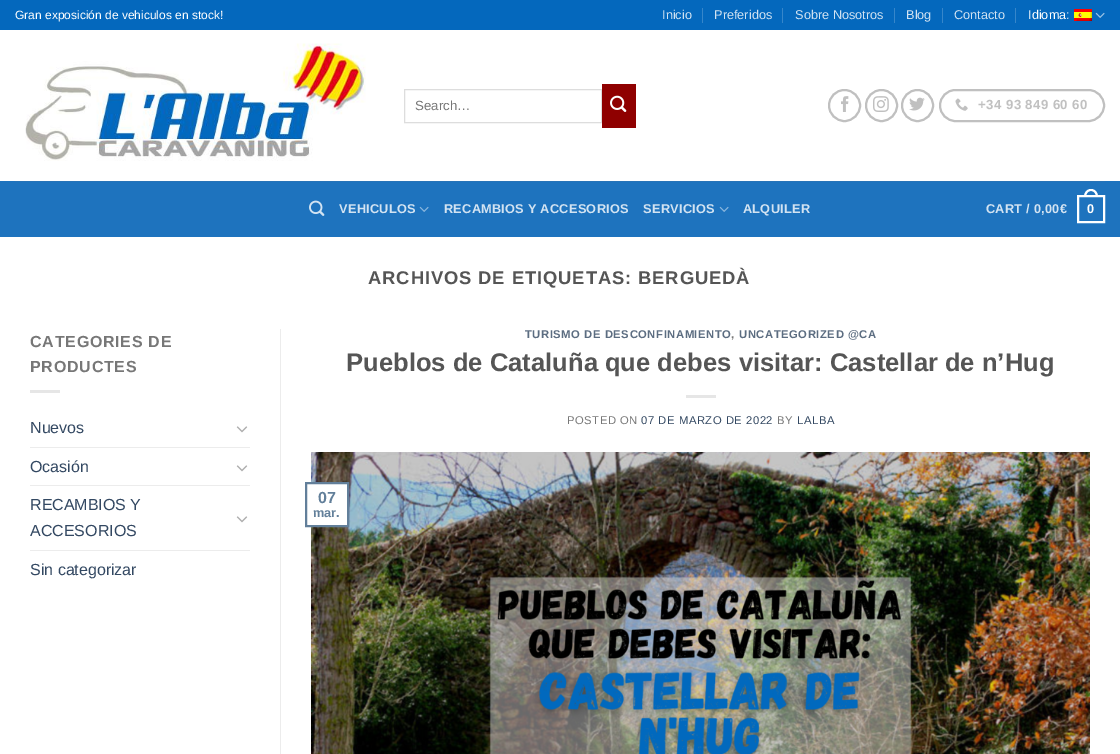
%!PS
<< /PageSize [1120 754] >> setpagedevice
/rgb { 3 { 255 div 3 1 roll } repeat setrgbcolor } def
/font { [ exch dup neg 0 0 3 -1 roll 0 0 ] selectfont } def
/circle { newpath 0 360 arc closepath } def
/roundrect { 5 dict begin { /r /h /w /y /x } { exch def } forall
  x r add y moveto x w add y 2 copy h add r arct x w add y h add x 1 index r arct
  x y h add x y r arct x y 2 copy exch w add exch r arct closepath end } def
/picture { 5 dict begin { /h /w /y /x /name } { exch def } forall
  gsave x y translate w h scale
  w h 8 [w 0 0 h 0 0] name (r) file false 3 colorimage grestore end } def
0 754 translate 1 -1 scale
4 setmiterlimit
255 255 255 rgb
0 0 1120 754 rectfill
[
  [0 0 1120 30 4 104 189]
  [702 8 1 15 54 134 202]
  [782 8 1 15 54 134 202]
  [894 8 1 15 54 134 202]
  [942 8 1 15 54 134 202]
  [1015 8 1 15 54 134 202]
] { aload pop rgb rectfill } forall
(img/1.rgb) 1074 9 18 12 picture
(img/2.rgb) 1095 12 10 6 picture
(img/3.rgb) 25 43 341 118 picture
221 221 221 rgb
404.5 89.5 197 33 rectstroke
143 0 0 rgb
602 84 34 44 rectfill
(img/4.rgb) 610 95 17 17 picture
192 192 192 rgb
2 setlinewidth
844.5 105.5 15.5 circle stroke
(img/5.rgb) 841 96 8 16 picture
881.5 105.5 15.5 circle stroke
(img/6.rgb) 873 96 16 16 picture
917.5 105.5 15.5 circle stroke
(img/7.rgb) 909 97 16 14 picture
940 90 164 31 15.5 roundrect stroke
(img/8.rgb) 955 98 13 13 picture
30 115 190 rgb
0 181 1120 56 rectfill
39 115 183 rgb
15 181 1090 1 rectfill
(img/9.rgb) 309 200 16 16 picture
(img/10.rgb) 419 206 10 6 picture
(img/10.rgb) 719 206 10 6 picture
255 255 255 rgb
1078 196 26 26 rectstroke
1091 189 moveto 1095.5 189 1098 193 1098 197 curveto 1084 197 lineto 1084 193 1086.5 189 1091 189 curveto closepath 1091 191 moveto 1094.5 191 1096 194 1096 197 curveto 1086 197 lineto 1086 194 1087.5 191 1091 191 curveto closepath eofill
230 230 230 rgb
30 390 30 3 rectfill
(img/11.rgb) 236 426 12 7 picture
236 236 236 rgb
30 447 220 1 rectfill
(img/11.rgb) 236 465 12 7 picture
30 485 220 1 rectfill
(img/11.rgb) 236 516 12 7 picture
[
  [30 550 220 1 236 236 236]
  [280 329 1 425 236 236 236]
  [686 395 30 3 230 230 230]
] { aload pop rgb rectfill } forall
(img/12.rgb) 311 452 779 302 picture
255 255 255 rgb
311 484 36 41 rectfill
98 127 154 rgb
306 483 42 43 rectstroke
/LiberationSans-Regular 12 font
255 255 255 rgb
15 19 moveto (Gran exposición de vehiculos en stock!) show
/LiberationSans-Regular 12.75 font
210 227 242 rgb
[
  [(Inicio) 662 19]
  [(Preferidos) 714 19]
  [(Sobre Nosotros) 795 19]
  [(Blog) 906 19]
  [(Contacto) 954 19]
] { aload pop moveto show } forall
255 255 255 rgb
1028 19 moveto (Idioma:) show
/LiberationSans-Regular 13.25 font
119 119 119 rgb
415 110 moveto (Search…) show
/LiberationSans-Bold 13.25 font
192 192 192 rgb
978 109 moveto 0.4 0 (+34 93 849 60 60) ashow
/LiberationSans-Bold 12.75 font
210 227 242 rgb
339 213 moveto 0.25 0 (VEHICULOS) ashow
444 213 moveto 0.25 0 (RECAMBIOS Y ACCESORIOS) ashow
643 213 moveto 0.25 0 (SERVICIOS) ashow
743 213 moveto 0.25 0 (ALQUILER) ashow
986 213 moveto 0.25 0 (CART / 0,00€) ashow
255 255 255 rgb
1087 213 moveto 0.25 0 (0) ashow
/LiberationSans-Bold 18.4 font
85 85 85 rgb
368 284 moveto 0.9 0 (ARCHIVOS DE ETIQUETAS: BERGUEDÀ) ashow
/LiberationSans-Bold 16 font
119 119 119 rgb
30 347 moveto 0.75 0 (CATEGORIES DE) ashow
30 372 moveto 0.75 0 (PRODUCTES) ashow
/LiberationSans-Regular 16 font
51 72 98 rgb
[
  [(Nuevos) 30 433]
  [(Ocasión) 30 472]
  [(RECAMBIOS Y) 30 510]
  [(ACCESORIOS) 30 536]
  [(Sin categorizar) 30 575]
] { aload pop moveto show } forall
/LiberationSans-Bold 11.25 font
92 109 129 rgb
525 338 moveto 0.55 0 (TURISMO DE DESCONFINAMIENTO) ashow
119 119 119 rgb
731 338 moveto 0.55 0 (,) ashow
92 109 129 rgb
739 338 moveto 0.55 0 (UNCATEGORIZED @CA) ashow
/LiberationSans-Bold 25.6 font
85 85 85 rgb
346 371 moveto (Pueblos de Cataluña que debes visitar: Castellar de n’Hug) show
/LiberationSans-Regular 11.25 font
119 119 119 rgb
567 424 moveto 0.55 0 (POSTED ON) ashow
51 72 98 rgb
641 424 moveto 0.55 0 (07 DE MARZO DE 2022) ashow
119 119 119 rgb
777 424 moveto 0.55 0 (BY) ashow
51 72 98 rgb
797 424 moveto 0.55 0 (LALBA) ashow
/LiberationSans-Bold 16 font
98 127 154 rgb
318 503 moveto (07) show
/LiberationSans-Bold 12.75 font
313 517 moveto (mar.) show
showpage
